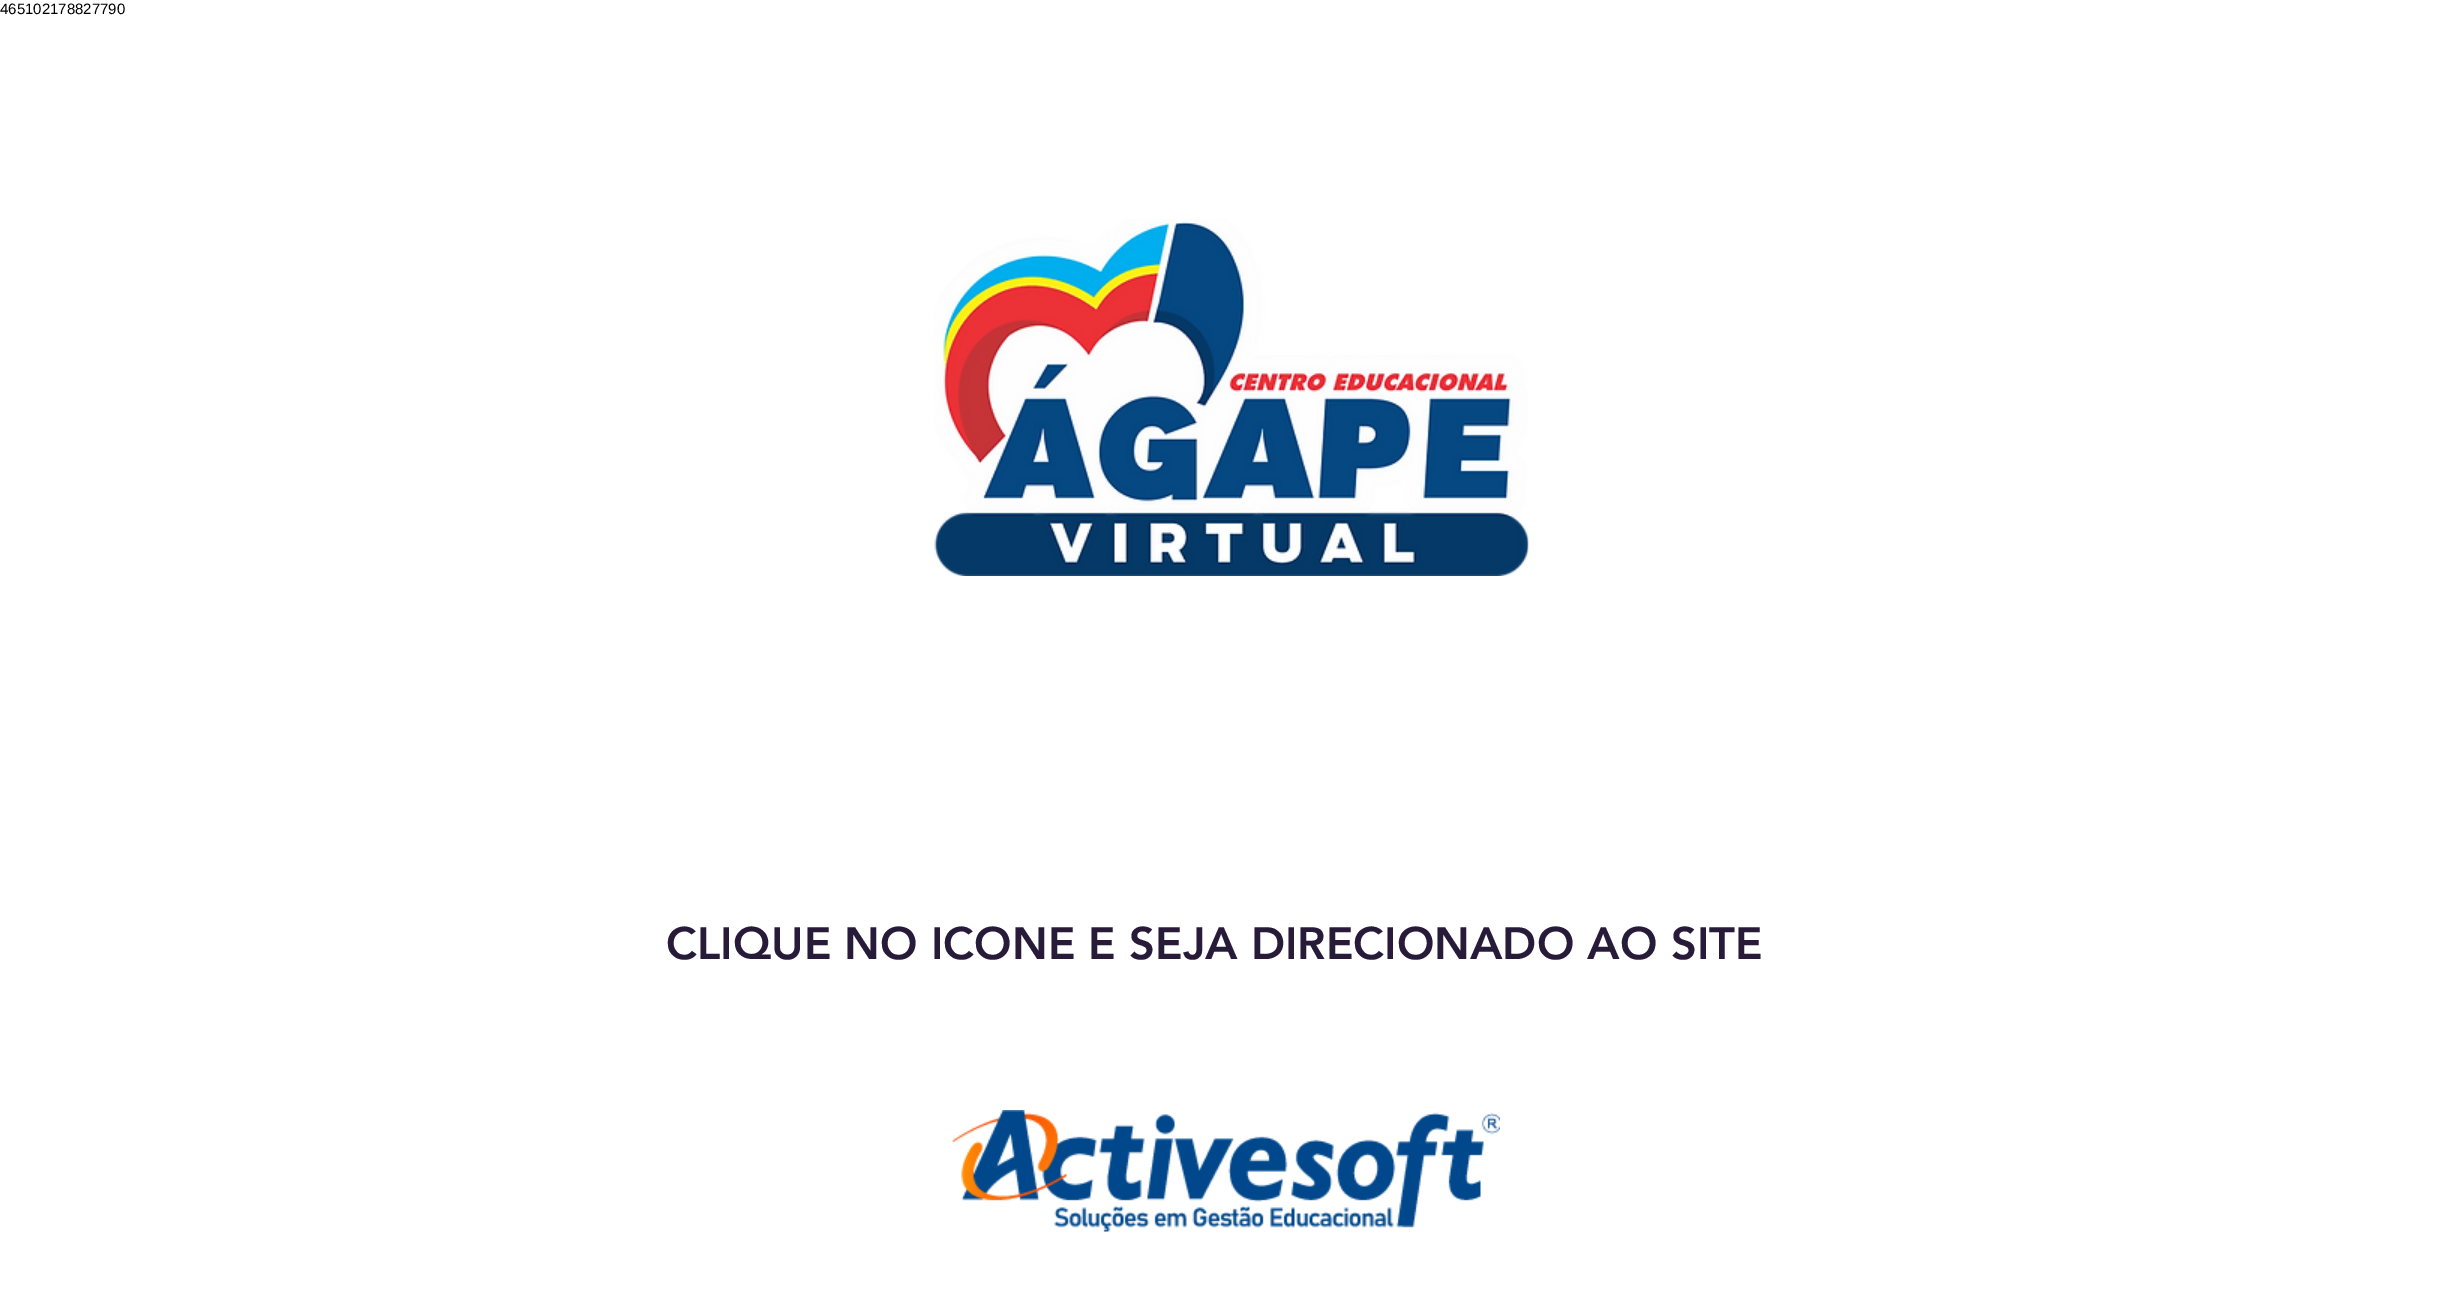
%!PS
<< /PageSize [2453 1302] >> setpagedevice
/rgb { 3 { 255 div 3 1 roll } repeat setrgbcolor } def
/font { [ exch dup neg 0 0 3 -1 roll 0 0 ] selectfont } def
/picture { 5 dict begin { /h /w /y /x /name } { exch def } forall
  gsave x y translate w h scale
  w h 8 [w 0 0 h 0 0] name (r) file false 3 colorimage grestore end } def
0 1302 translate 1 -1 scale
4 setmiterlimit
255 255 255 rgb
0 0 2453 1302 rectfill
(img/1.rgb) 934 219 595 357 picture
(img/2.rgb) 952 1110 548 122 picture
/LiberationSans-Regular 15 font
0 0 0 rgb
0 14 moveto (465102178827790) show
/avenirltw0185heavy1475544-Black 45 font
40 26 57 rgb
666 959 moveto (CLIQUE NO ICONE E SEJA DIRECIONADO AO SITE) show
showpage
